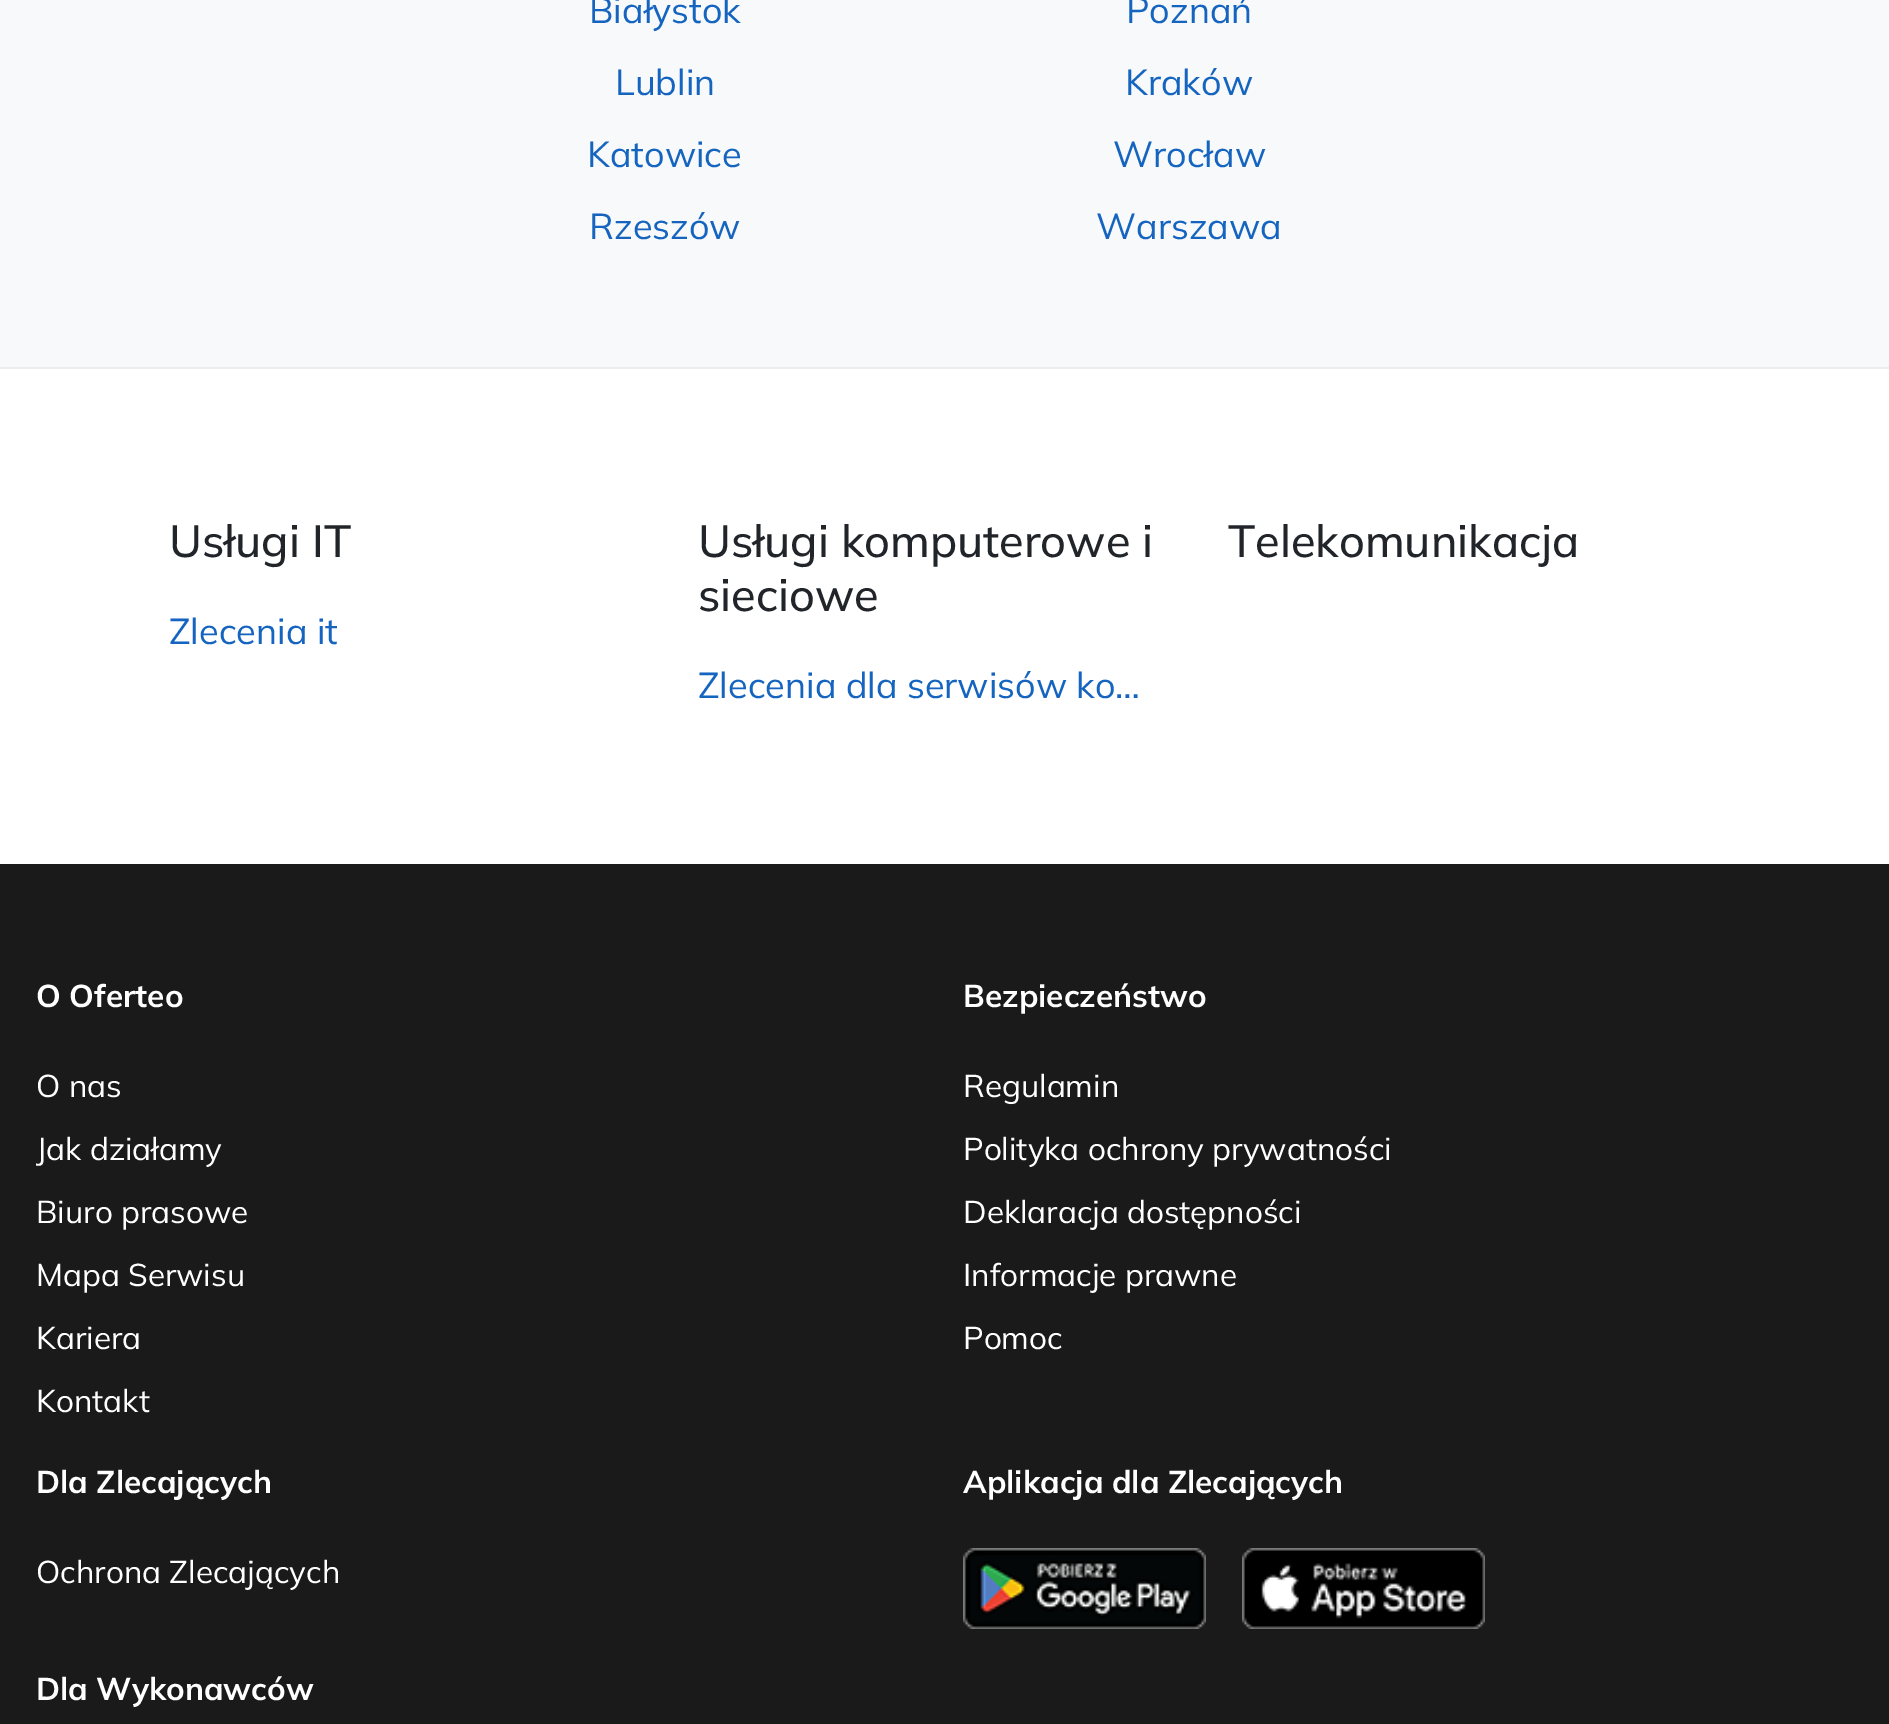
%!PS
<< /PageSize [1889 1724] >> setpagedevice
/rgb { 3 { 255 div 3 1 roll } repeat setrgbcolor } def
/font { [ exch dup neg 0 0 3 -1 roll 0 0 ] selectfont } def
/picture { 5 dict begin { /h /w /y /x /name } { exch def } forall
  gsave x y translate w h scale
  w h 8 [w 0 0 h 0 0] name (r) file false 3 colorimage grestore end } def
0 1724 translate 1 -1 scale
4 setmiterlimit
255 255 255 rgb
0 0 1889 1724 rectfill
[
  [0 0 1889 367 248 249 250]
  [0 367 1889 2 236 237 238]
  [0 864 1889 860 26 26 26]
] { aload pop rgb rectfill } forall
(img/1.rgb) 963 1548 243 81 picture
(img/2.rgb) 1242 1548 243 81 picture
/Mulish-Regular 36 font
21 101 192 rgb
[
  [(Białystok) 589 23]
  [(Poznań) 1126 23]
  [(Lublin) 615 95]
  [(Kraków) 1125 95]
  [(Katowice) 587 167]
  [(Wrocław) 1113 167]
  [(Rzeszów) 589 239]
  [(Warszawa) 1096 239]
] { aload pop moveto show } forall
/Mulish-Medium 45 font
33 37 41 rgb
169 557 moveto (Usługi IT) show
/Mulish-Regular 36 font
21 101 192 rgb
169 644 moveto (Zlecenia it) show
/Mulish-Medium 45 font
33 37 41 rgb
698 557 moveto (Usługi komputerowe i) show
698 611 moveto (sieciowe) show
/Mulish-Regular 36 font
21 101 192 rgb
698 698 moveto (Zlecenia dla serwisów ko…) show
/Mulish-Medium 45 font
33 37 41 rgb
1228 557 moveto (Telekomunikacja) show
/Mulish-Bold 31.5 font
255 255 255 rgb
36 1007 moveto (O Oferteo) show
/Mulish-Regular 31.5 font
[
  [(O nas) 36 1097]
  [(Jak działamy) 36 1160]
  [(Biuro prasowe) 36 1223]
  [(Mapa Serwisu) 36 1286]
  [(Kariera) 36 1349]
  [(Kontakt) 36 1412]
] { aload pop moveto show } forall
/Mulish-Bold 31.5 font
963 1007 moveto (Bezpieczeństwo) show
/Mulish-Regular 31.5 font
[
  [(Regulamin) 963 1097]
  [(Polityka ochrony prywatności) 963 1160]
  [(Deklaracja dostępności) 963 1223]
  [(Informacje prawne) 963 1286]
  [(Pomoc) 963 1349]
] { aload pop moveto show } forall
/Mulish-Bold 31.5 font
36 1493 moveto (Dla Zlecających) show
/Mulish-Regular 31.5 font
36 1583 moveto (Ochrona Zlecających) show
/Mulish-Bold 31.5 font
36 1700 moveto (Dla Wykonawców) show
963 1493 moveto (Aplikacja dla Zlecających) show
showpage
